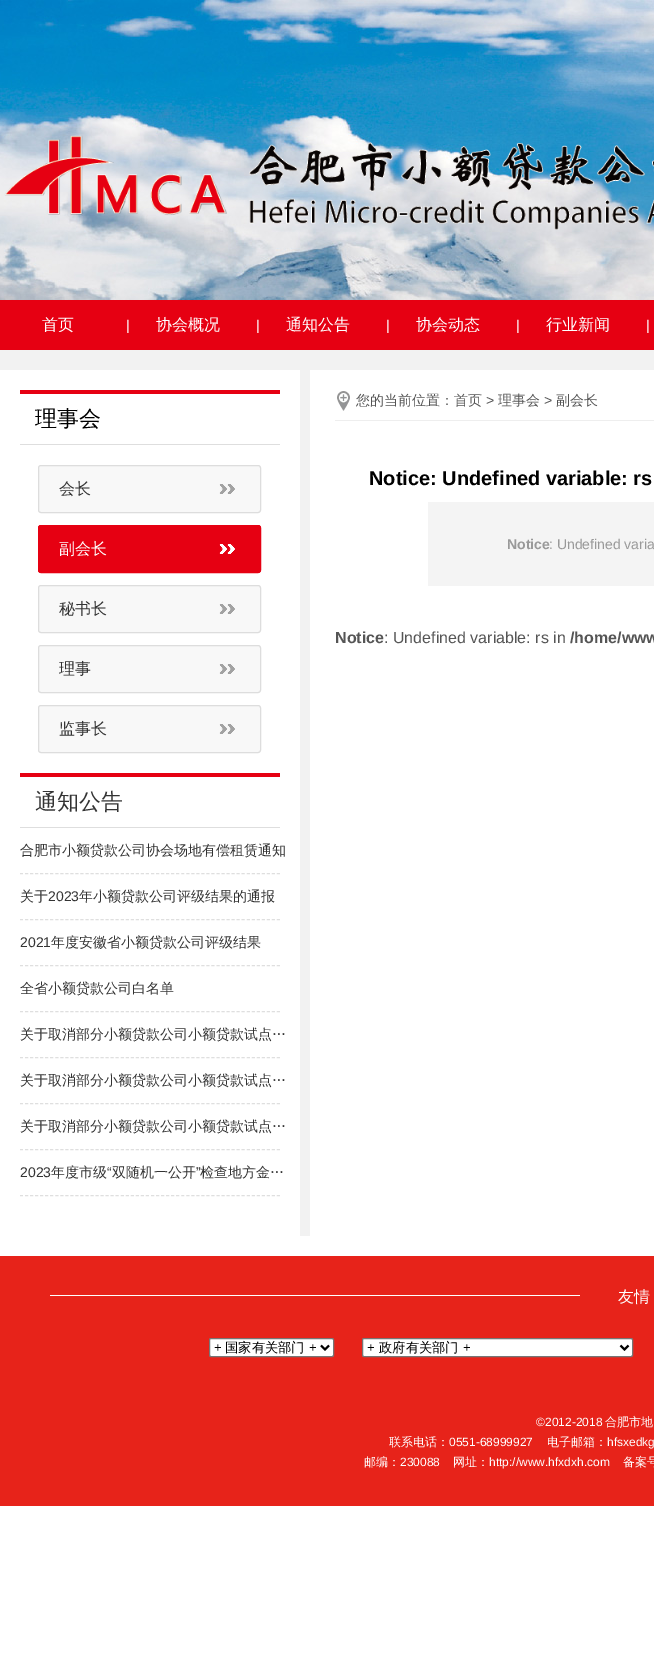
%!PS
<< /PageSize [654 1661] >> setpagedevice
/rgb { 3 { 255 div 3 1 roll } repeat setrgbcolor } def
/font { [ exch dup neg 0 0 3 -1 roll 0 0 ] selectfont } def
/roundrect { 5 dict begin { /r /h /w /y /x } { exch def } forall
  x r add y moveto x w add y 2 copy h add r arct x w add y h add x 1 index r arct
  x y h add x y r arct x y 2 copy exch w add exch r arct closepath end } def
/picture { 5 dict begin { /h /w /y /x /name } { exch def } forall
  gsave x y translate w h scale
  w h 8 [w 0 0 h 0 0] name (r) file false 3 colorimage grestore end } def
0 1661 translate 1 -1 scale
4 setmiterlimit
255 255 255 rgb
0 0 654 1661 rectfill
(img/1.rgb) 0 0 654 300 picture
(img/2.rgb) 4 135 650 95 picture
[
  [0 300 654 50 230 0 18]
  [0 350 654 20 242 242 242]
  [300 370 10 866 242 242 242]
  [20 390 260 4 230 0 18]
  [20 444 260 1 222 222 222]
] { aload pop rgb rectfill } forall
248 248 248 rgb
38 465 223 48 3 roundrect fill
(img/3.rgb) 219 484 16 10 picture
221 221 221 rgb
38.5 465.5 222 47 2.5 roundrect stroke
230 0 18 rgb
38 525 223 48 3 roundrect fill
(img/4.rgb) 219 544 16 10 picture
38.5 525.5 222 47 2.5 roundrect stroke
248 248 248 rgb
38 585 223 48 3 roundrect fill
(img/3.rgb) 219 604 16 10 picture
221 221 221 rgb
38.5 585.5 222 47 2.5 roundrect stroke
248 248 248 rgb
38 645 223 48 3 roundrect fill
(img/3.rgb) 219 664 16 10 picture
221 221 221 rgb
38.5 645.5 222 47 2.5 roundrect stroke
248 248 248 rgb
38 705 223 48 3 roundrect fill
(img/3.rgb) 219 724 16 10 picture
221 221 221 rgb
38.5 705.5 222 47 2.5 roundrect stroke
230 0 18 rgb
20 773 260 4 rectfill
222 222 222 rgb
20 827 260 1 rectfill
223 223 223 rgb
[3 2.04] 0 setdash
20 873.5 moveto 280 873.5 lineto stroke
20 919.5 moveto 280 919.5 lineto stroke
20 965.5 moveto 280 965.5 lineto stroke
20 1011.5 moveto 280 1011.5 lineto stroke
20 1057.5 moveto 280 1057.5 lineto stroke
20 1103.5 moveto 280 1103.5 lineto stroke
20 1149.5 moveto 280 1149.5 lineto stroke
20 1195.5 moveto 280 1195.5 lineto stroke
238 238 238 rgb
335 420 319 1 rectfill
(img/5.rgb) 337 391 13 20 picture
[
  [428 502 226 84 244 244 244]
  [0 1256 654 250 231 35 26]
  [50 1295 530 1 255 255 255]
] { aload pop rgb rectfill } forall
209.5 1338.5 124 18 1.5 roundrect gsave fill grestore
118 118 118 rgb
[] 0 setdash
stroke
0 0 0 rgb
2 setlinewidth
321 1345.5 moveto 325 1349.5 lineto 329 1345.5 lineto stroke
255 255 255 rgb
362.5 1338.5 270 18 1.5 roundrect gsave fill grestore
118 118 118 rgb
1 setlinewidth
stroke
0 0 0 rgb
2 setlinewidth
620.5 1345.5 moveto 624.5 1349.5 lineto 628.5 1345.5 lineto stroke
/WenQuanYiZenHei-Medium 16 font
255 255 255 rgb
42 330 moveto (首页) show
/LiberationSans-Regular 14 font
126 330 moveto (|) show
/WenQuanYiZenHei-Medium 16 font
156 330 moveto (协会概况) show
/LiberationSans-Regular 14 font
256 330 moveto (|) show
/WenQuanYiZenHei-Medium 16 font
286 330 moveto (通知公告) show
/LiberationSans-Regular 14 font
386 330 moveto (|) show
/WenQuanYiZenHei-Medium 16 font
416 330 moveto (协会动态) show
/LiberationSans-Regular 14 font
516 330 moveto (|) show
/WenQuanYiZenHei-Medium 16 font
546 330 moveto (行业新闻) show
/LiberationSans-Regular 14 font
646 330 moveto (|) show
/WenQuanYiZenHei-Medium 22 font
0 0 0 rgb
35 426 moveto (理事会) show
/WenQuanYiZenHei-Medium 16 font
51 51 51 rgb
59 494 moveto (会长) show
255 255 255 rgb
59 554 moveto (副会长) show
51 51 51 rgb
[
  [(秘书长) 59 614]
  [(理事) 59 674]
  [(监事长) 59 734]
] { aload pop moveto show } forall
/WenQuanYiZenHei-Medium 22 font
35 809 moveto (通知公告) show
/WenQuanYiZenHei-Medium 14 font
20 855 moveto (合肥市小额贷款公司协会场地有偿租赁通知) show
20 901 moveto (关于) show
/LiberationSans-Regular 14 font
48 901 moveto (2023) show
/WenQuanYiZenHei-Medium 14 font
79 901 moveto (年小额贷款公司评级结果的通报) show
/LiberationSans-Regular 14 font
20 947 moveto (2021) show
/WenQuanYiZenHei-Medium 14 font
[
  [(年度安徽省小额贷款公司评级结果) 51 947]
  [(全省小额贷款公司白名单) 20 993]
  [(关于取消部分小额贷款公司小额贷款试点…) 20 1039]
  [(关于取消部分小额贷款公司小额贷款试点…) 20 1085]
  [(关于取消部分小额贷款公司小额贷款试点…) 20 1131]
] { aload pop moveto show } forall
/LiberationSans-Regular 14 font
20 1177 moveto (2023) show
/WenQuanYiZenHei-Medium 14 font
51 1177 moveto (年度市级) show
/LiberationSans-Regular 14 font
107 1177 moveto (“) show
/WenQuanYiZenHei-Medium 14 font
112 1177 moveto (双随机一公开) show
/LiberationSans-Regular 14 font
196 1177 moveto (”) show
/WenQuanYiZenHei-Medium 14 font
200 1177 moveto (检查地方金…) show
85 85 85 rgb
356 405 moveto (您的当前位置：首页) show
/LiberationSans-Regular 14 font
486 405 moveto (>) show
/WenQuanYiZenHei-Medium 14 font
498 405 moveto (理事会) show
/LiberationSans-Regular 14 font
544 405 moveto (>) show
/WenQuanYiZenHei-Medium 14 font
556 405 moveto (副会长) show
/LiberationSans-Bold 20 font
0 0 0 rgb
369 485 moveto (Notice: Undefined variable: rs) show
/LiberationSans-Bold 14 font
153 153 153 rgb
507 549 moveto (Notice) show
/LiberationSans-Regular 14 font
549 549 moveto (: Undefined varia) show
/LiberationSans-Bold 16 font
85 85 85 rgb
335 643 moveto (Notice) show
/LiberationSans-Regular 16 font
384 643 moveto (: Undefined variable: rs in) show
/LiberationSans-Bold 16 font
570 643 moveto (/home/www) show
/WenQuanYiZenHei-Medium 16 font
255 255 255 rgb
618 1302 moveto (友情) show
/LiberationSans-Regular 13.25 font
0 0 0 rgb
214 1352 moveto (+) show
/WenQuanYiZenHei-Medium 13.25 font
225 1352 moveto (国家有关部门) show
/LiberationSans-Regular 13.25 font
309 1352 moveto (+) show
367 1352 moveto (+) show
/WenQuanYiZenHei-Medium 13.25 font
379 1352 moveto (政府有关部门) show
/LiberationSans-Regular 13.25 font
463 1352 moveto (+) show
/LiberationSans-Regular 12 font
255 255 255 rgb
536 1426 moveto (©2012-2018) show
/WenQuanYiZenHei-Medium 12 font
605 1426 moveto (合肥市地) show
389 1446 moveto (联系电话：) show
/LiberationSans-Regular 12 font
449 1446 moveto (0551-68999927) show
/WenQuanYiZenHei-Medium 12 font
547 1446 moveto (电子邮箱：) show
/LiberationSans-Regular 12 font
607 1446 moveto (hfsxedkg) show
/WenQuanYiZenHei-Medium 12 font
364 1466 moveto (邮编：) show
/LiberationSans-Regular 12 font
400 1466 moveto (230088) show
/WenQuanYiZenHei-Medium 12 font
453 1466 moveto (网址：) show
/LiberationSans-Regular 12 font
489 1466 moveto (http://www.hfxdxh.com) show
/WenQuanYiZenHei-Medium 12 font
623 1466 moveto (备案号) show
showpage
